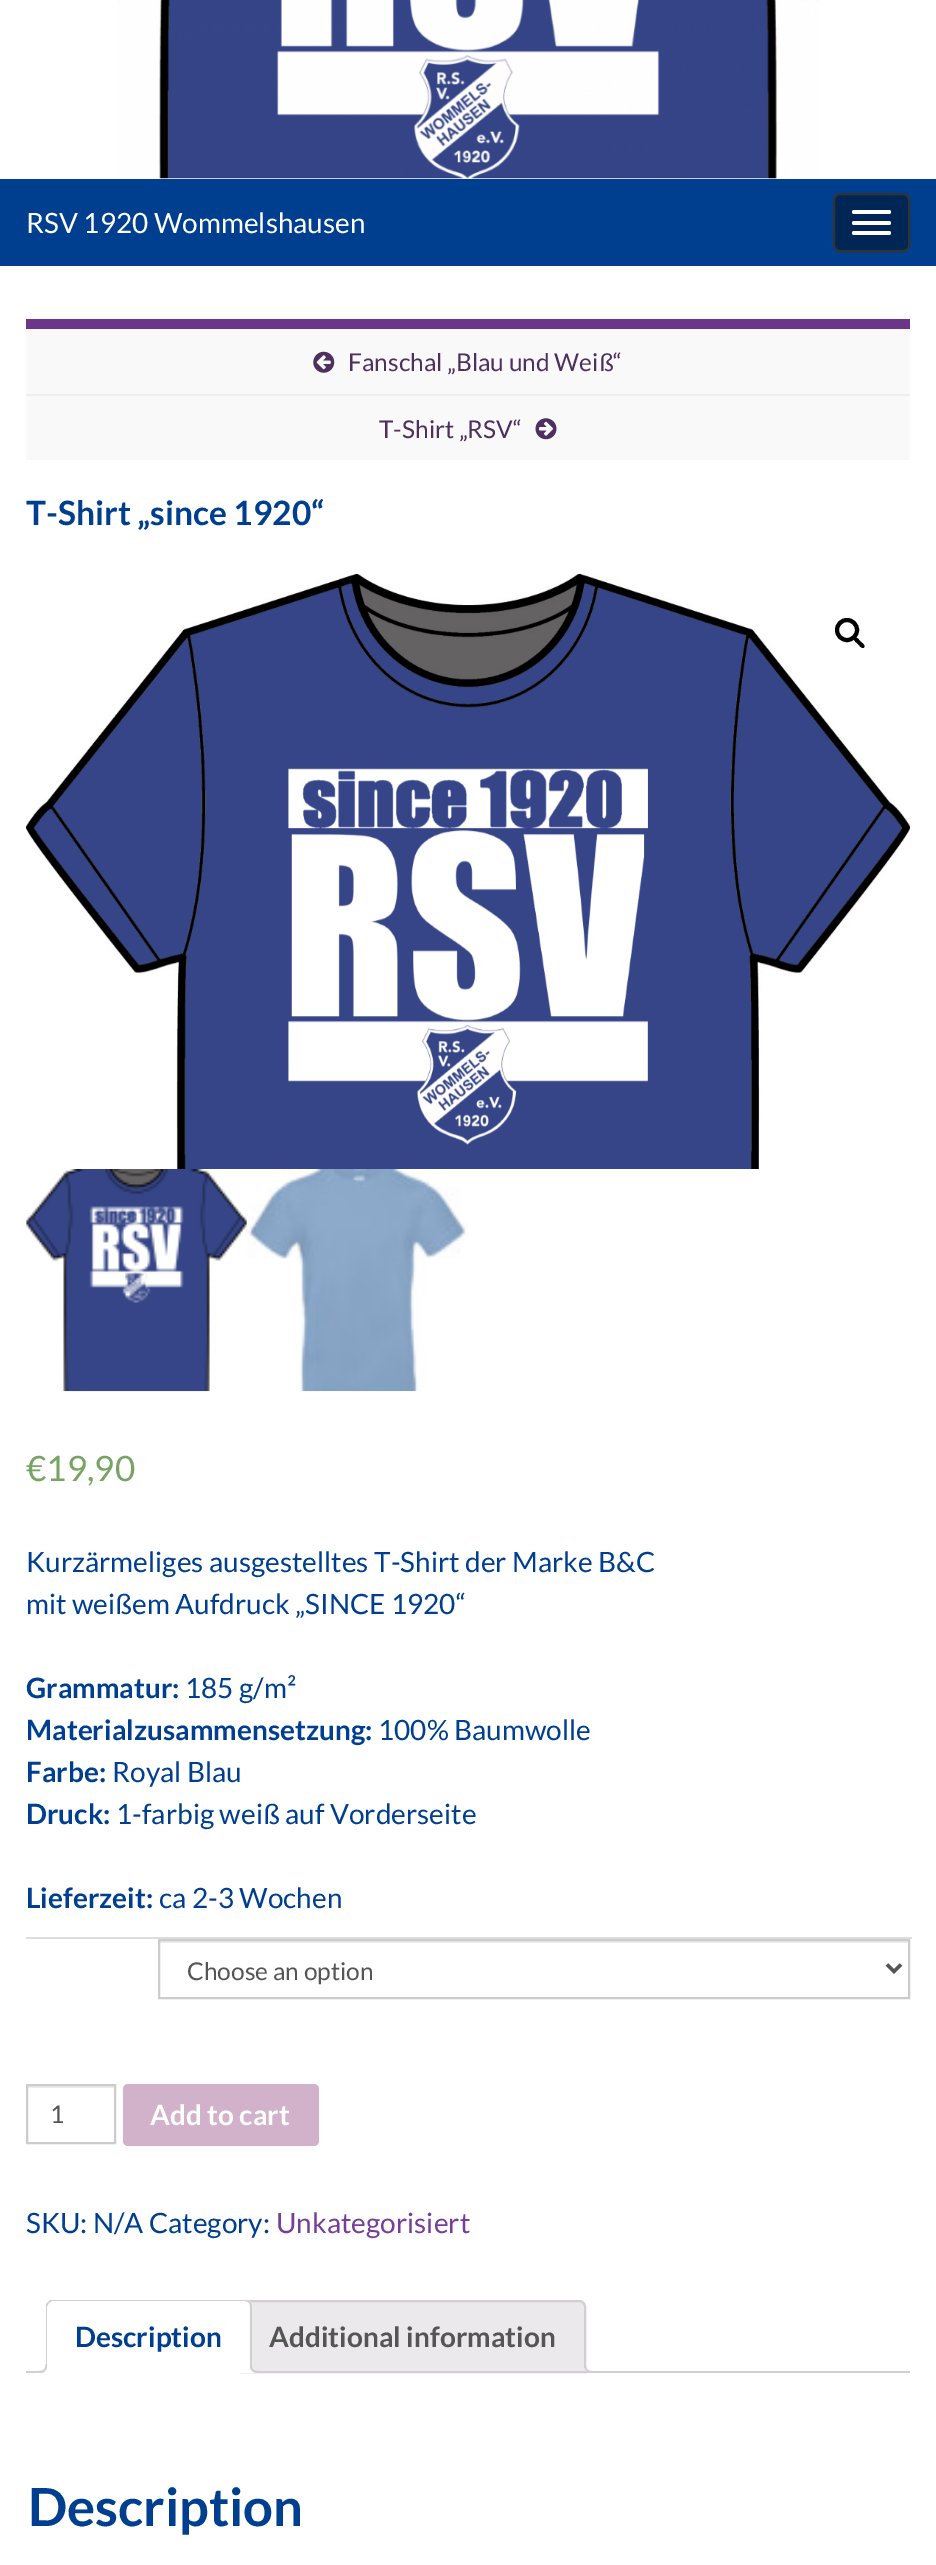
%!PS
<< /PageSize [936 2565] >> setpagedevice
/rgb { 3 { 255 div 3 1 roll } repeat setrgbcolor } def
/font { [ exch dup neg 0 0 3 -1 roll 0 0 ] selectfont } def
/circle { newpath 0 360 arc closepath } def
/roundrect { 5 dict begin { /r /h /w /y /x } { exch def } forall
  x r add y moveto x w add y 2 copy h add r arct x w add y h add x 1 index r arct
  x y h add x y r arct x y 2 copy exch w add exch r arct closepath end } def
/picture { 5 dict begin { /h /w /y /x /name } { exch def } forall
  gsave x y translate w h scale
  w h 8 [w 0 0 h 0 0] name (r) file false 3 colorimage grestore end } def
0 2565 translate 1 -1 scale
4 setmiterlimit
255 255 255 rgb
0 0 936 2565 rectfill
(img/1.rgb) 117 0 702 179 picture
0 63 143 rgb
0 179 936 87 rectfill
0 38 86 rgb
834 194 75 57 6 roundrect gsave fill grestore
51 51 51 rgb
2 setlinewidth
stroke
255 255 255 rgb
852 210 39 4 2 roundrect fill
852 221 39 4 2 roundrect fill
852 231 39 4 2 roundrect fill
249 249 249 rgb
26 329 884 131 rectfill
107 53 137 rgb
26 319 884 10 rectfill
(img/2.rgb) 313 351 22 22 picture
238 238 238 rgb
26 394 884 2 rectfill
(img/3.rgb) 535 418 22 22 picture
(img/4.rgb) 26 574 884 595 picture
0 0 0 rgb
4 setlinewidth
847 630 10 circle stroke
854.5 638 moveto 856.5 636 859.5 640.5 860.5 641.5 curveto 861.5 642.5 866 645.5 864 647.5 curveto 862 649.5 859 645 858 644 curveto 857 643 852.5 640 854.5 638 curveto closepath fill
(img/5.rgb) 26 1169 221 223 picture
(img/6.rgb) 246 1169 223 223 picture
221 221 221 rgb
26 1937 886 2 rectfill
236 236 236 rgb
159 1941 749 2 rectfill
204 204 204 rgb
2 setlinewidth
159 1940 750 58 rectstroke
85 85 85 rgb
3.5 setlinewidth
887 1964.5 moveto 894 1971.5 lineto 901 1964.5 lineto stroke
236 236 236 rgb
28 2086 86 2 rectfill
204 204 204 rgb
2 setlinewidth
27 2085 88 58 rectstroke
210 178 203 rgb
123 2084 196 62 5 roundrect fill
235 233 235 rgb
247 2301 moveto 579 2301 lineto 582.5 2301 585 2303.5 585 2307 curveto 585 2372 lineto 241 2372 lineto 241 2307 lineto 241 2303.5 243.5 2301 247 2301 curveto closepath gsave fill grestore
211 206 210 rgb
stroke
gsave
26 2300 884 73 rectclip
235 233 235 rgb
581 2368 moveto 581 2374.5 583.5 2377 590 2377 curveto 590 2373 lineto 587.5 2372.5 585.5 2370.5 585 2368 curveto closepath fill
grestore
584.5 2364 moveto 593 2364 lineto 593 2373 lineto 589 2373 584.5 2371.5 584.5 2366 curveto closepath 586 2364 moveto 593 2364 lineto 593 2371 lineto 590 2371 586 2370.5 586 2366 curveto closepath eofill
26 2371 884 2 rectfill
255 255 255 rgb
53 2300 moveto 245 2300 lineto 249 2300 252 2303 252 2307 curveto 252 2373 lineto 46 2373 lineto 46 2307 lineto 46 2303 49 2300 53 2300 curveto closepath fill
211 206 210 rgb
52 2300 moveto 50 2300 49 2301 48 2302 curveto 49 2303 lineto 52 2301 lineto 245 2301 lineto 246 2301 248 2302 249 2303 curveto 250 2302 lineto 249 2301 247 2300 245 2300 curveto closepath fill
250 2302 moveto 252 2305 lineto 252 2373 lineto 250 2371 lineto 250 2306 lineto 250 2305 250 2304 249 2303 curveto closepath fill
255 255 255 rgb
252 2373 moveto 250 2371 lineto 48 2371 lineto 46 2373 lineto closepath fill
211 206 210 rgb
48 2302 moveto 47 2303 46 2304 46 2306 curveto 46 2372 lineto 48 2371 lineto 47 2371 lineto 47 2306 lineto 49 2303 lineto closepath fill
gsave
26 2300 884 73 rectclip
255 255 255 rgb
42 2373 moveto 42 2377 lineto 48.5 2377 51 2374.5 51 2368 curveto 47 2368 lineto 46.5 2370.5 44.5 2372 42 2373 curveto closepath fill
grestore
38.5 2364 moveto 47 2364 lineto 47 2370.5 44.5 2373 38.5 2373 curveto closepath 38.5 2364 moveto 45.5 2364 lineto 45.5 2369.5 43.5 2371 38.5 2371 curveto closepath eofill
gsave
26 2300 884 73 rectclip
255 255 255 rgb
247 2368 moveto 247 2374.5 249.5 2377 256 2377 curveto 256 2373 lineto 253.5 2372.5 251.5 2370.5 250.5 2368 curveto closepath fill
grestore
250 2364 moveto 259 2364 lineto 259 2373 lineto 254.5 2373 250 2371.5 250 2366 curveto closepath 252 2364 moveto 259 2364 lineto 259 2371 lineto 255.5 2371 252 2370.5 252 2366 curveto closepath eofill
/Lato-Regular 28 font
255 255 255 rgb
26 233 moveto (RSV 1920 Wommelshausen) show
/Lato-Regular 24.5 font
78 48 94 rgb
348 371 moveto (Fanschal „Blau und Weiß“) show
379 438 moveto (T-Shirt „RSV“) show
/Lato-Bold 33.5 font
0 63 143 rgb
26 525 moveto (T-Shirt „since 1920“) show
/Lato-Regular 35 font
119 164 100 rgb
26 1481 moveto (€19,90) show
/Lato-Regular 28 font
0 63 143 rgb
26 1572 moveto (Kurzärmeliges ausgestelltes T-Shirt der Marke B&C) show
26 1614 moveto (mit weißem Aufdruck „SINCE 1920“) show
/Lato-Bold 28 font
26 1698 moveto (Grammatur:) show
/Lato-Regular 28 font
185 1698 moveto (185 g/m²) show
/Lato-Bold 28 font
26 1740 moveto (Materialzusammensetzung:) show
/Lato-Regular 28 font
378 1740 moveto (100% Baumwolle) show
/Lato-Bold 28 font
26 1782 moveto (Farbe:) show
/Lato-Regular 28 font
112 1782 moveto (Royal Blau) show
/Lato-Bold 28 font
26 1824 moveto (Druck:) show
/Lato-Regular 28 font
116 1824 moveto (1-farbig weiß auf Vorderseite) show
/Lato-Bold 28 font
26 1908 moveto (Lieferzeit:) show
/Lato-Regular 28 font
159 1908 moveto (ca 2-3 Wochen) show
/Lato-Regular 24.5 font
85 85 85 rgb
187 1980 moveto (Choose an option) show
50 2123 moveto (1) show
/Lato-Bold 28 font
255 255 255 rgb
150 2125 moveto (Add to cart) show
/Lato-Regular 28 font
0 63 143 rgb
26 2233 moveto (SKU: N/A Category:) show
120 61 152 rgb
276 2233 moveto (Unkategorisiert) show
/Lato-Bold 28 font
0 63 143 rgb
75 2347 moveto (Description) show
85 85 85 rgb
269 2347 moveto (Additional information) show
/Lato-Bold 52.5 font
0 63 143 rgb
28 2526 moveto (Description) show
showpage
